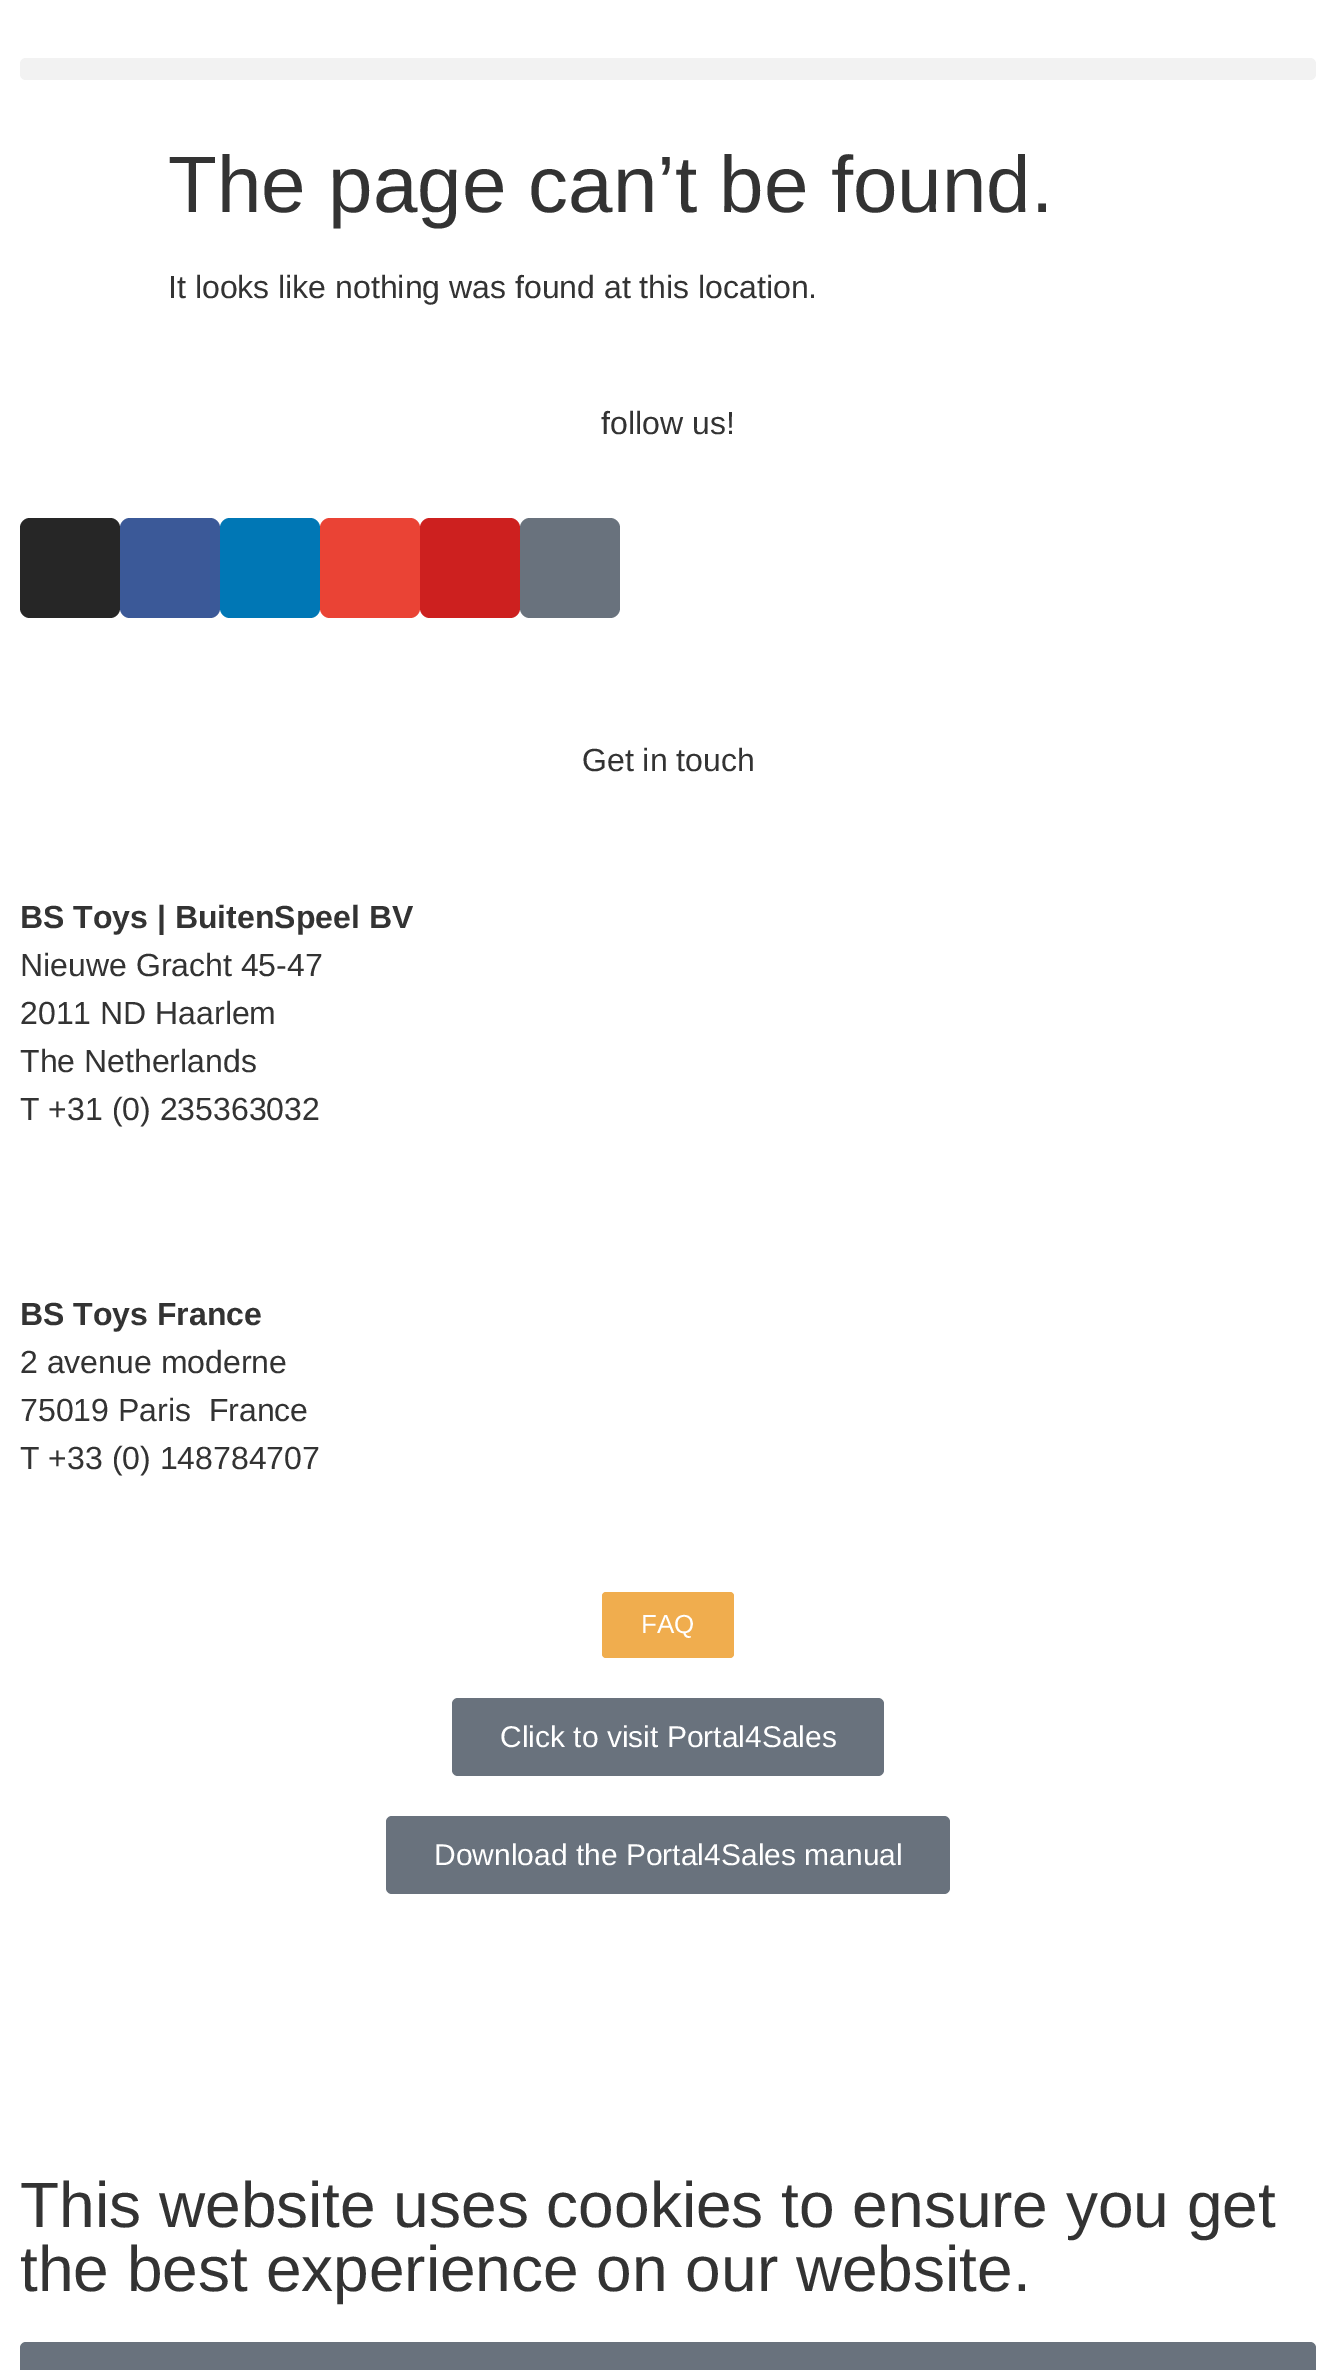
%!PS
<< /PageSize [1336 2370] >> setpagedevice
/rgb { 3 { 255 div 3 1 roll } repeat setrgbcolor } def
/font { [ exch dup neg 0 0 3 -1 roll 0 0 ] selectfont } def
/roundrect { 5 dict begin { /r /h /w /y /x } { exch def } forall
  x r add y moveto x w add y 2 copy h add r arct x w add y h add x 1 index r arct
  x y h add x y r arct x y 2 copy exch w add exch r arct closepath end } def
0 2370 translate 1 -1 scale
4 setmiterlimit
255 255 255 rgb
0 0 1336 2370 rectfill
242 242 242 rgb
20 58 1296 22 6 roundrect fill
38 38 38 rgb
20 518 100 100 10 roundrect fill
59 89 152 rgb
120 518 100 100 10 roundrect fill
0 119 181 rgb
220 518 100 100 10 roundrect fill
234 67 53 rgb
320 518 100 100 10 roundrect fill
205 32 31 rgb
420 518 100 100 10 roundrect fill
105 114 125 rgb
520 518 100 100 10 roundrect fill
240 173 78 rgb
602 1592 132 66 4 roundrect fill
105 114 125 rgb
452 1698 432 78 6 roundrect fill
386 1816 564 78 6 roundrect fill
20 2342 1296 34 6 roundrect fill
/LiberationSans-Regular 80 font
51 51 51 rgb
168 212 moveto (The page can’t be found.) show
/LiberationSans-Regular 32 font
[
  [(It looks like nothing was found at this location.) 168 298]
  [(follow us!) 601 434]
  [(Get in touch) 582 771]
] { aload pop moveto show } forall
/LiberationSans-Bold 32 font
20 928 moveto (BS Toys | BuitenSpeel BV) show
/LiberationSans-Regular 32 font
[
  [(Nieuwe Gracht 45-47) 20 976]
  [(2011 ND Haarlem) 20 1024]
  [(The Netherlands) 20 1072]
  [(T +31 \(0\) 235363032) 20 1120]
] { aload pop moveto show } forall
/LiberationSans-Bold 32 font
20 1325 moveto (BS Toys France) show
/LiberationSans-Regular 32 font
[
  [(2 avenue moderne) 20 1373]
  [(75019 Paris  France) 20 1421]
  [(T +33 \(0\) 148784707) 20 1469]
] { aload pop moveto show } forall
/LiberationSans-Regular 26 font
255 255 255 rgb
641 1633 moveto (FAQ) show
/LiberationSans-Regular 30 font
500 1747 moveto (Click to visit Portal4Sales) show
434 1865 moveto (Download the Portal4Sales manual) show
/LiberationSans-Regular 64 font
51 51 51 rgb
20 2227 moveto (This website uses cookies to ensure you get) show
20 2291 moveto (the best experience on our website.) show
showpage
